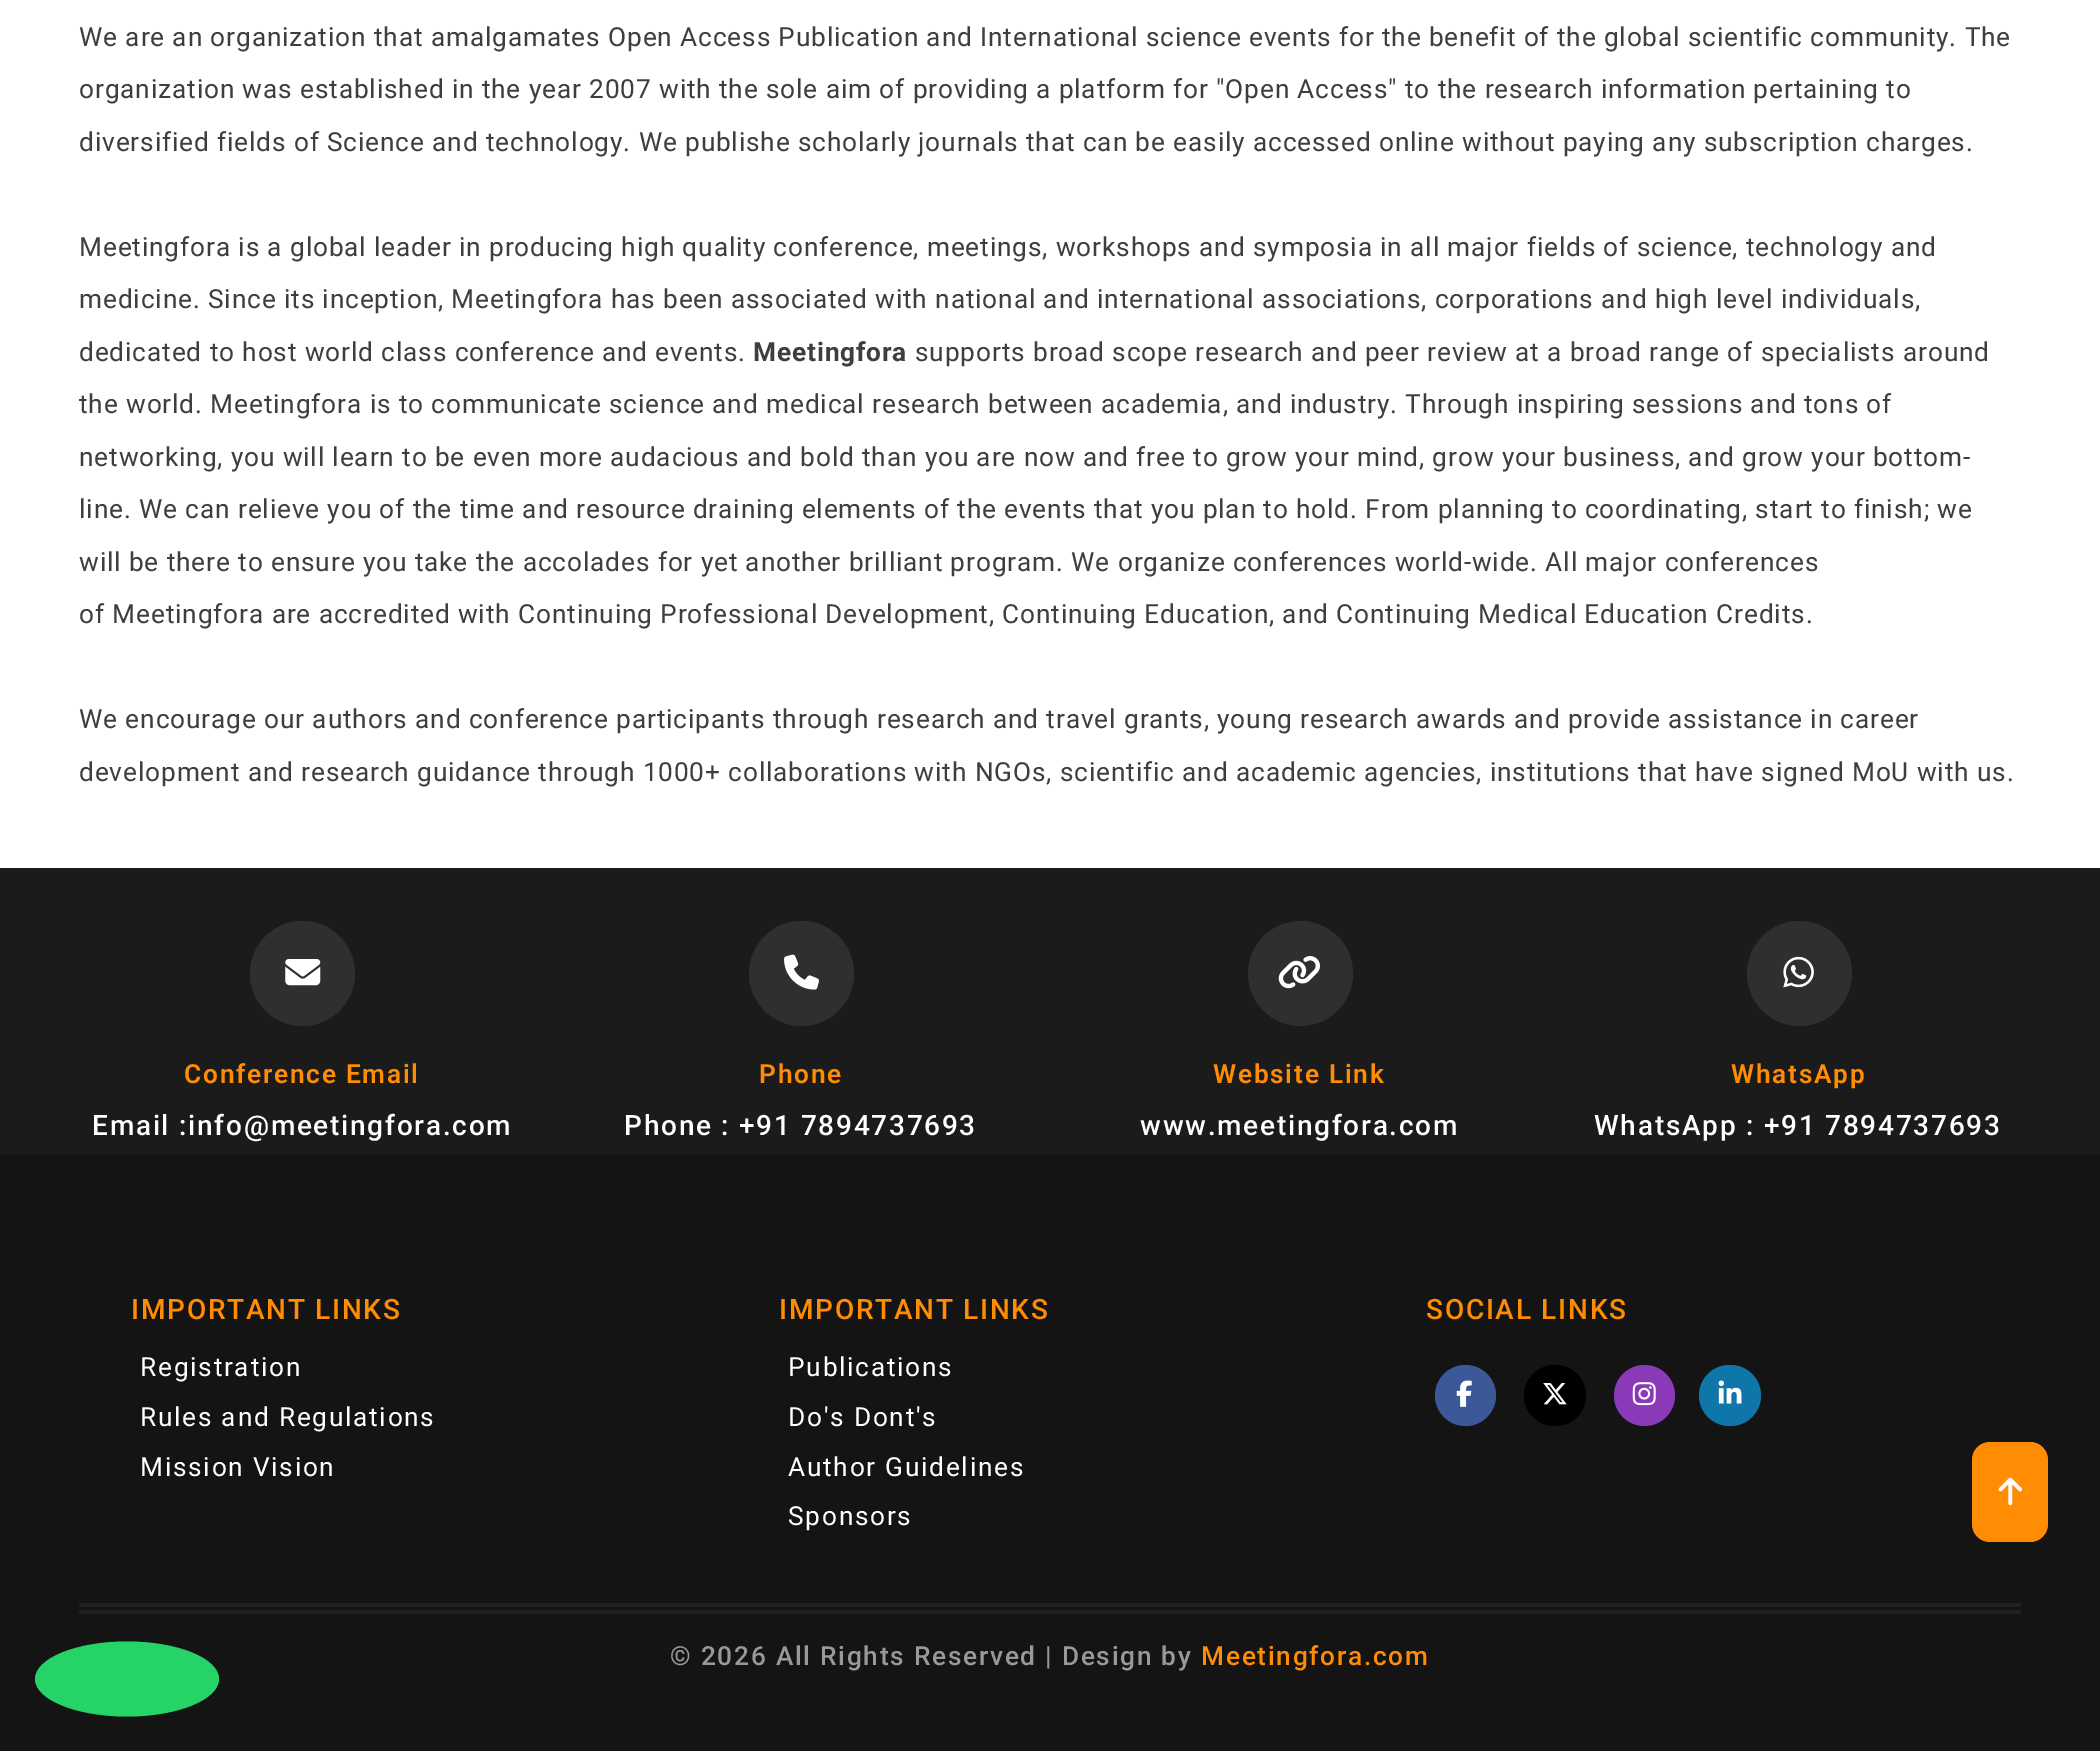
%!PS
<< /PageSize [2100 1751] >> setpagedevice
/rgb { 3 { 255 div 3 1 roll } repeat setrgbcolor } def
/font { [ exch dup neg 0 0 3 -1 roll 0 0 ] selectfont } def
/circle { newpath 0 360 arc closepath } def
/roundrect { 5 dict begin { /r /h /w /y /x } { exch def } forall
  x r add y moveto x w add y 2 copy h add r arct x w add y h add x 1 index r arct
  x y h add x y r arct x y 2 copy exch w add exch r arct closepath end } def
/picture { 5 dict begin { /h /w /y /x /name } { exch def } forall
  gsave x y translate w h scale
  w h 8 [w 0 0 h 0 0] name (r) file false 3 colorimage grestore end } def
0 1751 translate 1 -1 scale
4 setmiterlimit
255 255 255 rgb
0 0 2100 1751 rectfill
27 27 27 rgb
0 868 2100 287 rectfill
47 47 47 rgb
302.5 973.5 52.5 circle fill
(img/1.rgb) 285 959 36 27 picture
801.5 973.5 52.5 circle fill
(img/2.rgb) 784 954 35 36 picture
1300.5 973.5 52.5 circle fill
(img/3.rgb) 1278 956 42 33 picture
1799.5 973.5 52.5 circle fill
(img/4.rgb) 1783 956 31 32 picture
20 20 20 rgb
0 1155 2100 596 rectfill
59 89 152 rgb
1465.5 1395.5 30.5 circle fill
(img/5.rgb) 1456 1380 16 27 picture
0 0 0 rgb
1524 1365 62 61 30.5 roundrect fill
(img/6.rgb) 1543 1383 24 22 picture
138 58 185 rgb
1644.5 1395.5 30.5 circle fill
(img/7.rgb) 1632 1382 24 24 picture
14 118 168 rgb
1699 1365 62 61 30.5 roundrect fill
(img/8.rgb) 1718 1380 24 24 picture
34 33 33 rgb
79 1603 1942 4 rectfill
79 1610 1942 4 rectfill
255 140 3 rgb
1972 1442 76 100 18 roundrect fill
(img/9.rgb) 1998 1477 25 29 picture
37 211 102 rgb
127 1641.5 moveto 178 1641.5 219 1658.5 219 1679 curveto 219 1699.5 178 1716.5 127 1716.5 curveto 76 1716.5 35 1699.5 35 1679 curveto 35 1658.5 76 1641.5 127 1641.5 curveto closepath fill
/Roboto-Regular 26.25 font
62 62 62 rgb
79 46 moveto 0.88 0 (We are an organization that amalgamates Open Access Publication and International science events for the benefit of the global scientific community. The) ashow
79 98 moveto 0.88 0 (organization was established in the year 2007 with the sole aim of providing a platform for "Open Access" to the research information pertaining to) ashow
79 151 moveto 0.88 0 (diversified fields of Science and technology. We publishe scholarly journals that can be easily accessed online without paying any subscription charges.) ashow
79 256 moveto 0.88 0 (Meetingfora is a global leader in producing high quality conference, meetings, workshops and symposia in all major fields of science, technology and) ashow
79 308 moveto 0.88 0 (medicine. Since its inception, Meetingfora has been associated with national and international associations, corporations and high level individuals,) ashow
79 361 moveto 0.88 0 (dedicated to host world class conference and events.) ashow
/Roboto-Bold 26.25 font
753 361 moveto 0.88 0 (Meetingfora) ashow
/Roboto-Regular 26.25 font
915 361 moveto 0.88 0 (supports broad scope research and peer review at a broad range of specialists around) ashow
79 413 moveto 0.88 0 (the world. Meetingfora is to communicate science and medical research between academia, and industry. Through inspiring sessions and tons of) ashow
79 466 moveto 0.88 0 (networking, you will learn to be even more audacious and bold than you are now and free to grow your mind, grow your business, and grow your bottom-) ashow
79 518 moveto 0.88 0 (line. We can relieve you of the time and resource draining elements of the events that you plan to hold. From planning to coordinating, start to finish; we) ashow
79 571 moveto 0.88 0 (will be there to ensure you take the accolades for yet another brilliant program. We organize conferences world-wide. All major conferences) ashow
79 623 moveto 0.88 0 (of Meetingfora are accredited with Continuing Professional Development, Continuing Education, and Continuing Medical Education Credits.) ashow
79 728 moveto 0.88 0 (We encourage our authors and conference participants through research and travel grants, young research awards and provide assistance in career) ashow
79 781 moveto 0.88 0 (development and research guidance through 1000+ collaborations with NGOs, scientific and academic agencies, institutions that have signed MoU with us.) ashow
/Roboto-SemiBold 26.25 font
255 140 3 rgb
184 1083 moveto 1.75 0 (Conference Email) ashow
/Roboto-Medium 28 font
255 255 255 rgb
92 1135 moveto 1.75 0 (Email :info@meetingfora.com) ashow
/Roboto-SemiBold 26.25 font
255 140 3 rgb
759 1083 moveto 1.75 0 (Phone) ashow
/Roboto-Medium 28 font
255 255 255 rgb
624 1135 moveto 1.75 0 (Phone : +91 7894737693) ashow
/Roboto-SemiBold 26.25 font
255 140 3 rgb
1213 1083 moveto 1.75 0 (Website Link) ashow
/Roboto-Medium 28 font
255 255 255 rgb
1140 1135 moveto 1.75 0 (www.meetingfora.com) ashow
/Roboto-SemiBold 26.25 font
255 140 3 rgb
1731 1083 moveto 1.75 0 (WhatsApp) ashow
/Roboto-Medium 28 font
255 255 255 rgb
1594 1135 moveto 1.75 0 (WhatsApp : +91 7894737693) ashow
255 140 3 rgb
131 1319 moveto 1.75 0 (IMPORTANT LINKS) ashow
/Roboto-Regular 26.25 font
255 255 255 rgb
140 1376 moveto 1.75 0 (Registration) ashow
140 1426 moveto 1.75 0 (Rules and Regulations) ashow
140 1476 moveto 1.75 0 (Mission Vision) ashow
/Roboto-Medium 28 font
255 140 3 rgb
779 1319 moveto 1.75 0 (IMPORTANT LINKS) ashow
/Roboto-Regular 26.25 font
255 255 255 rgb
788 1376 moveto 1.75 0 (Publications) ashow
788 1426 moveto 1.75 0 (Do's Dont's) ashow
788 1476 moveto 1.75 0 (Author Guidelines) ashow
788 1525 moveto 1.75 0 (Sponsors) ashow
/Roboto-Medium 28 font
255 140 3 rgb
1426 1319 moveto 1.75 0 (SOCIAL LINKS) ashow
/Roboto-Medium 26.25 font
153 153 153 rgb
670 1665 moveto 1.75 0 (© 2026 All Rights Reserved | Design by) ashow
255 140 3 rgb
1201 1665 moveto 1.75 0 (Meetingfora.com) ashow
showpage
